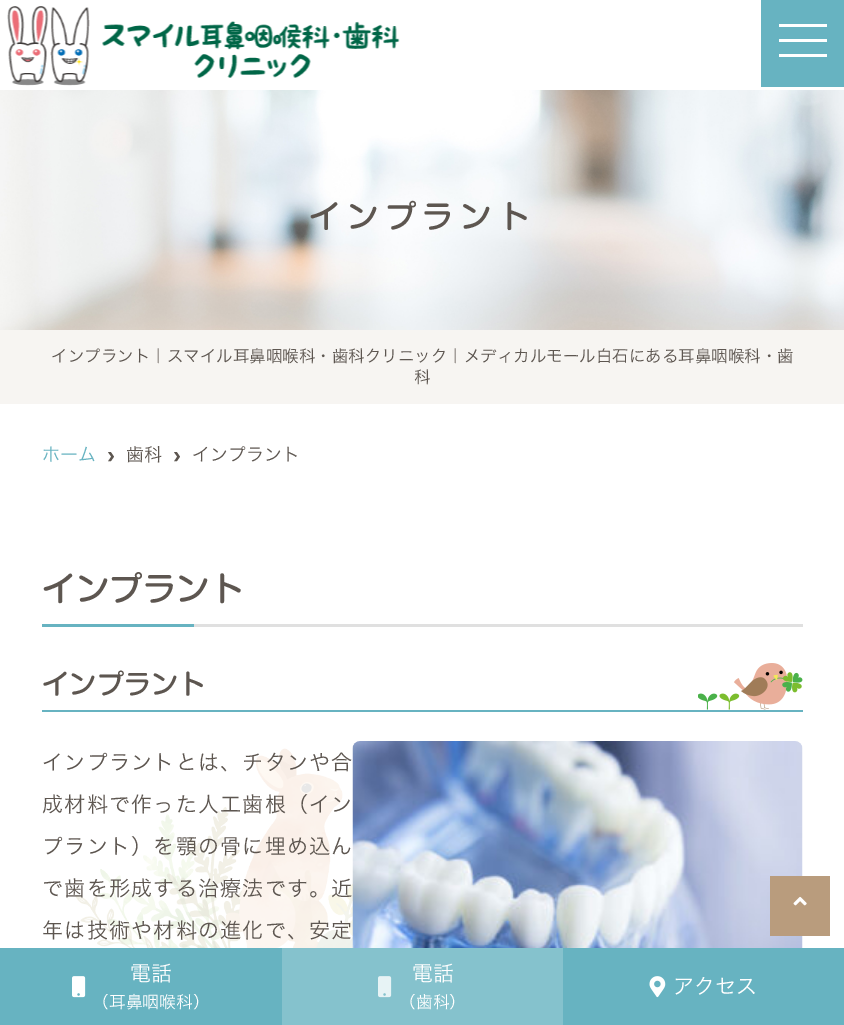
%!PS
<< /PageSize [844 1025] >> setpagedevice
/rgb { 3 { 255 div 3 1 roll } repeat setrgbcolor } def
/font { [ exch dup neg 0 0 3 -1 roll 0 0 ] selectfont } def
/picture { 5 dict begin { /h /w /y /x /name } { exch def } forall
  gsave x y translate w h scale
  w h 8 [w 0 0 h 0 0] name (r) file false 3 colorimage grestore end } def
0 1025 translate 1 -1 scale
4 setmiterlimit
255 255 255 rgb
0 0 844 1025 rectfill
(img/1.rgb) 7 6 393 80 picture
[
  [761 0 83 87 103 179 193]
  [779 39 48 3 255 255 255]
  [779 24 48 3 255 255 255]
  [779 54 48 3 255 255 255]
] { aload pop rgb rectfill } forall
(img/2.rgb) 0 90 844 240 picture
[
  [0 330 844 74 247 245 242]
  [194 624 609 3 224 224 224]
  [42 624 152 3 103 179 193]
] { aload pop rgb rectfill } forall
(img/3.rgb) 698 663 105 47 picture
42 710 761 2 rectfill
(img/5.rgb) 75 748 278 200 picture
(img/4.rgb) 352 741 451 207 picture
185 156 125 rgb
770 876 60 60 rectfill
(img/6.rgb) 793 896 14 10 picture
103 179 193 rgb
0 948 282 77 rectfill
(img/7.rgb) 72 976 14 22 picture
133 194 205 rgb
282 948 281 77 rectfill
(img/8.rgb) 378 976 14 22 picture
103 179 193 rgb
563 948 281 77 rectfill
(img/9.rgb) 649 976 17 22 picture
/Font-Medium 31.5 font
93 86 80 rgb
309 228 moveto 6.25 0 (インプラント) ashow
/Font-Light 16.5 font
51 362 moveto (インプラント｜スマイル耳鼻咽喉科・歯科クリニック｜メディカルモール白石にある耳鼻咽喉科・歯) show
414 383 moveto (科) show
/Font-Light 18 font
103 179 193 rgb
42 461 moveto (ホーム) show
/LiberationSans-Bold 24 font
93 86 80 rgb
107 463 moveto (›) show
/Font-Light 18 font
126 461 moveto (歯科) show
/LiberationSans-Bold 24 font
173 463 moveto (›) show
/Font-Light 18 font
192 461 moveto (インプラント) show
/Font-Medium 33.5 font
42 601 moveto (インプラント) show
/Font-Medium 27.25 font
42 694 moveto (インプラント) show
/Font-Light 21 font
42 770 moveto 1.25 0 (インプラントとは、チタンや合) ashow
42 812 moveto 1.25 0 (成材料で作った人工歯根（イン) ashow
42 854 moveto 1.25 0 (プラント）を顎の骨に埋め込ん) ashow
42 896 moveto 1.25 0 (で歯を形成する治療法です。近) ashow
42 938 moveto 1.25 0 (年は技術や材料の進化で、安定) ashow
255 255 255 rgb
130 981 moveto (電話) show
/Font-Light 16.75 font
92 1008 moveto (（耳鼻咽喉科）) show
/Font-Light 21 font
412 981 moveto (電話) show
/Font-Light 16.75 font
399 1008 moveto (（歯科）) show
/Font-Light 21 font
673 994 moveto (アクセス) show
showpage
